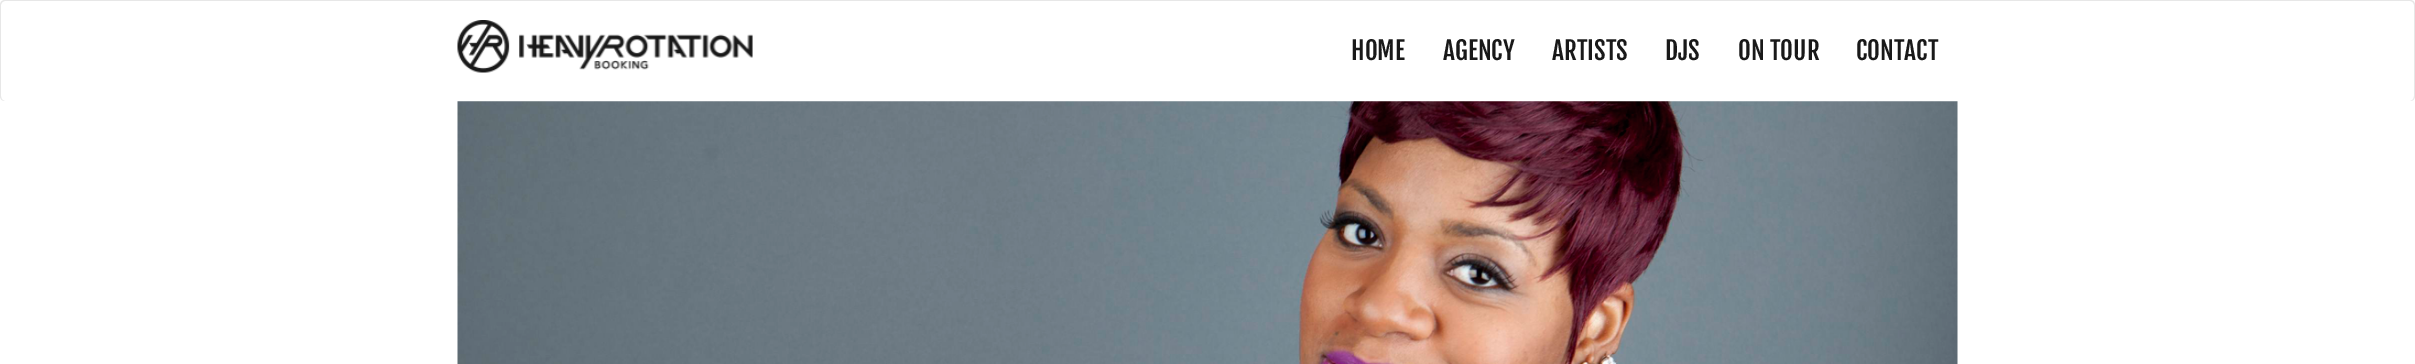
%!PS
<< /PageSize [2415 364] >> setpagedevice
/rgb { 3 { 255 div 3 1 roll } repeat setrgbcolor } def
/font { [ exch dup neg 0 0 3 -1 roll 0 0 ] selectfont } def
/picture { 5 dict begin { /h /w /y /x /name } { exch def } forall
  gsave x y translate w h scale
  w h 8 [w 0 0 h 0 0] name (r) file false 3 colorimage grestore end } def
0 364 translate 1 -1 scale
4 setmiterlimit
255 255 255 rgb
0 0 2415 364 rectfill
231 231 231 rgb
5 0 moveto 2410 0 lineto 2413 0 2415 2 2415 5 curveto 2415 96 lineto 2415 99 2413 101 2410 101 curveto 5 101 lineto 2 101 0 99 0 96 curveto 0 5 lineto 0 2 2 0 5 0 curveto closepath 5 1 moveto 2410 1 lineto 2412 1 2414 3 2414 5 curveto 2414 96 lineto 2414 99 2412 101 2410 101 curveto 5 101 lineto 3 101 1 99 1 96 curveto 1 5 lineto 1 3 3 1 5 1 curveto closepath eofill
(img/1.rgb) 457 20 296 53 picture
(img/2.rgb) 457 101 1501 263 picture
/FjallaOne-Regular 25 font
25 25 25 rgb
[
  [(HOME) 1351 60]
  [(AGENCY) 1443 60]
  [(ARTISTS) 1552 60]
  [(DJS) 1665 60]
  [(ON TOUR) 1738 60]
  [(CONTACT) 1856 60]
] { aload pop moveto show } forall
showpage
